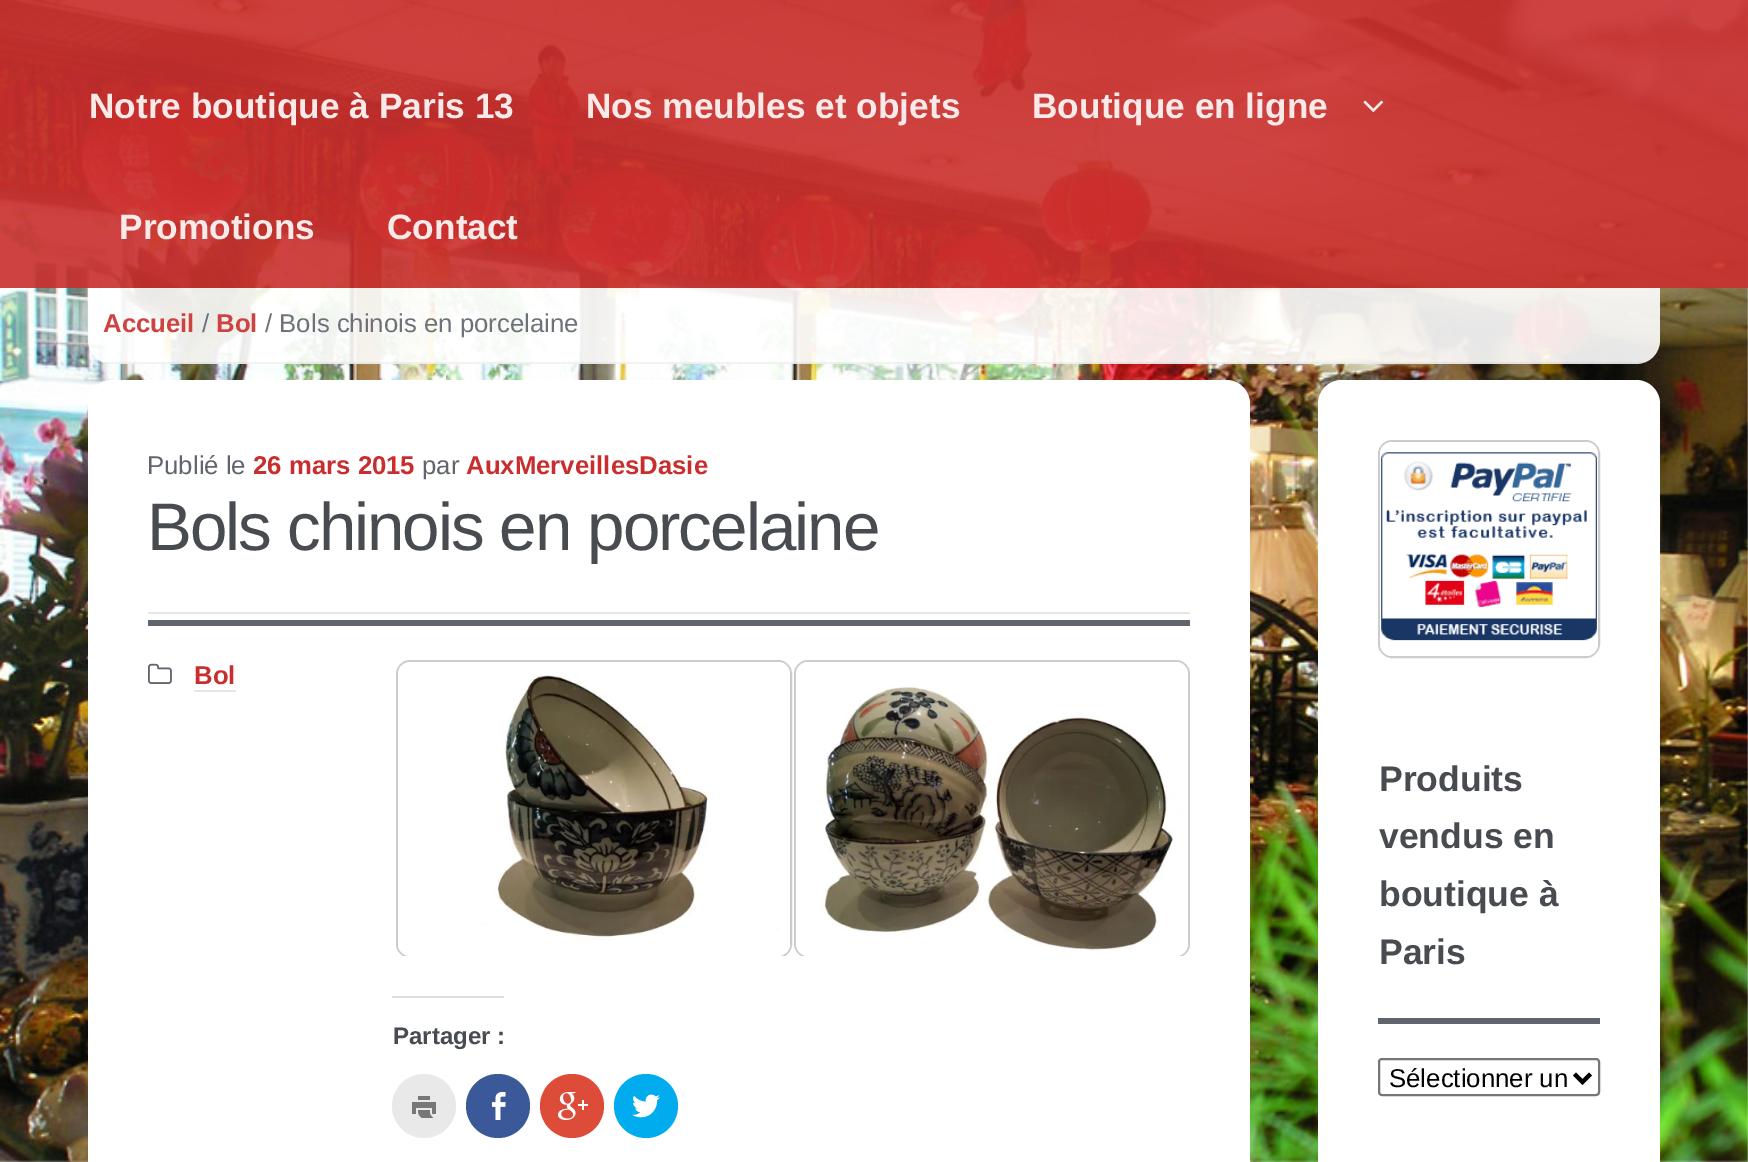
%!PS
<< /PageSize [1748 1162] /PageUsesTransparency true >> setpagedevice
/rgb { 3 { 255 div 3 1 roll } repeat setrgbcolor } def
/font { [ exch dup neg 0 0 3 -1 roll 0 0 ] selectfont } def
/alpha { dup .setfillconstantalpha .setstrokeconstantalpha } def
/circle { newpath 0 360 arc closepath } def
/roundrect { 5 dict begin { /r /h /w /y /x } { exch def } forall
  x r add y moveto x w add y 2 copy h add r arct x w add y h add x 1 index r arct
  x y h add x y r arct x y 2 copy exch w add exch r arct closepath end } def
/picture { 5 dict begin { /h /w /y /x /name } { exch def } forall
  gsave x y translate w h scale
  w h 8 [w 0 0 h 0 0] name (r) file false 3 colorimage grestore end } def
0 .pushpdf14devicefilter
0 1162 translate 1 -1 scale
4 setmiterlimit
255 255 255 rgb
0 0 1748 1162 rectfill
(img/1.rgb) 0 0 1748 1162 picture
0.9 alpha
201 46 46 rgb
0 0 1748 288 rectfill
1 alpha
(img/2.rgb) 1363 100 21 12 picture
0.9 alpha
255 255 255 rgb
88 288 moveto 1660 288 lineto 1660 340 lineto 1660 353.5 1649.5 364 1636 364 curveto 112 364 lineto 98.5 364 88 353.5 88 340 curveto closepath fill
0.05 alpha
0 0 0 rgb
100 362 1548 2 rectfill
1 alpha
255 255 255 rgb
88 380 1162 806 24 roundrect fill
96 100 108 rgb
148 620 1042 6 rectfill
230 230 230 rgb
148 612 1042 2 rectfill
(img/3.rgb) 148 663 24 21 picture
194 690 42 2 rectfill
gsave
392 656 798 300 rectclip
204 204 204 rgb
2 setlinewidth
397 661 394 296 13 roundrect stroke
grestore
(img/4.rgb) 398 662 392 294 picture
gsave
392 656 798 300 rectclip
204 204 204 rgb
2 setlinewidth
795 661 394 296 13 roundrect stroke
grestore
(img/5.rgb) 796 662 392 294 picture
221 221 221 rgb
392 996 112 2 rectfill
233 233 233 rgb
424 1106 32 circle fill
(img/6.rgb) 412 1096 24 22 picture
59 89 152 rgb
498 1106 32 circle fill
(img/7.rgb) 492 1092 14 28 picture
221 75 57 rgb
572 1106 32 circle fill
(img/8.rgb) 558 1092 30 28 picture
0 172 238 rgb
646 1106 32 circle fill
(img/9.rgb) 632 1094 28 24 picture
255 255 255 rgb
1318 380 342 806 24 roundrect fill
204 204 204 rgb
2 setlinewidth
1379 441 220 216 13 roundrect stroke
(img/10.rgb) 1380 442 218 214 picture
96 100 108 rgb
1378 1018 222 6 rectfill
118 118 118 rgb
1379 1059 220 36 3 roundrect stroke
0 0 0 rgb
4 setlinewidth
1574.5 1074 moveto 1582.5 1082 lineto 1590.5 1074 lineto stroke
/LiberationSans-Bold 35.25 font
249 234 234 rgb
[
  [(Notre boutique à Paris 13) 89 118]
  [(Nos meubles et objets) 586 118]
  [(Boutique en ligne) 1032 118]
  [(Promotions) 119 239]
  [(Contact) 387 239]
] { aload pop moveto show } forall
/LiberationSans-Bold 25.75 font
206 66 66 rgb
103 332 moveto (Accueil) show
/LiberationSans-Regular 25.75 font
110 114 120 rgb
202 332 moveto (/) show
/LiberationSans-Bold 25.75 font
206 66 66 rgb
216 332 moveto (Bol) show
/LiberationSans-Regular 25.75 font
110 114 120 rgb
265 332 moveto (/ Bols chinois en porcelaine) show
96 100 108 rgb
147 474 moveto (Publié le) show
/LiberationSans-Bold 25.75 font
201 46 46 rgb
253 474 moveto (26 mars 2015) show
/LiberationSans-Regular 25.75 font
96 100 108 rgb
422 474 moveto (par) show
/LiberationSans-Bold 25.75 font
201 46 46 rgb
466 474 moveto (AuxMerveillesDasie) show
/LiberationSans-Regular 67.4 font
72 76 81 rgb
147 550 moveto -2 0 (Bols chinois en porcelaine) ashow
/LiberationSans-Bold 25.75 font
201 46 46 rgb
194 684 moveto (Bol) show
/LiberationSans-Bold 24 font
72 76 81 rgb
393 1044 moveto (Partager :) show
/LiberationSans-Bold 35.5 font
[
  [(Produits) 1379 791]
  [(vendus en) 1379 848]
  [(boutique à) 1379 906]
  [(Paris) 1379 964]
] { aload pop moveto show } forall
/LiberationSans-Regular 25.75 font
0 0 0 rgb
1389 1087 moveto (Sélectionner un) show
.poppdf14devicefilter showpage
